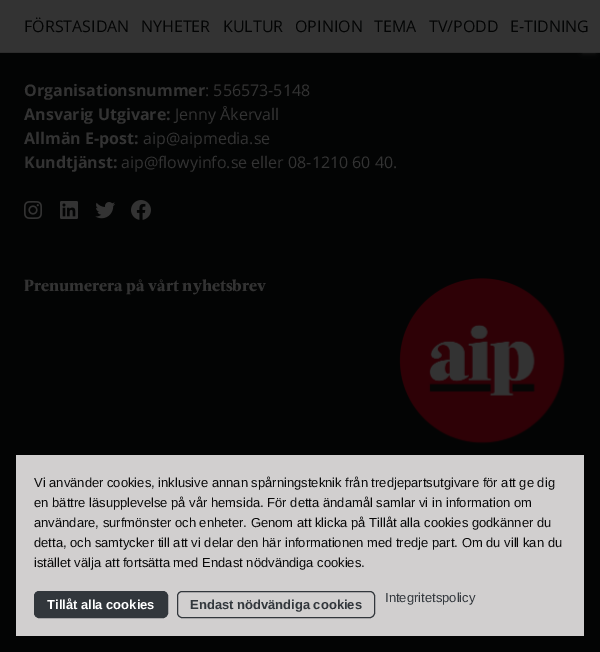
%!PS
<< /PageSize [600 652] /PageUsesTransparency true >> setpagedevice
/rgb { 3 { 255 div 3 1 roll } repeat setrgbcolor } def
/font { [ exch dup neg 0 0 3 -1 roll 0 0 ] selectfont } def
/alpha { dup .setfillconstantalpha .setstrokeconstantalpha } def
/roundrect { 5 dict begin { /r /h /w /y /x } { exch def } forall
  x r add y moveto x w add y 2 copy h add r arct x w add y h add x 1 index r arct
  x y h add x y r arct x y 2 copy exch w add exch r arct closepath end } def
/shadow { 12 dict begin { /a /b /q /h /w /y /x } { exch def } forall gsave /was 0 def
  9 -2 -9 { dup b mul 4 div /e exch def 1 sub .425 mul 2.718 exch exp 1 add a .99 .min exch div /now exch def
    1 1 now sub 1 was sub div sub alpha /was now def
    w h .min e 2 mul add 0 gt { x e sub y e sub w e 2 mul add h e 2 mul add
      q e add b .6 mul add w h .min 2 div e add .min 0 .max roundrect fill } if } for grestore end } def
/picture { 5 dict begin { /h /w /y /x /name } { exch def } forall
  gsave x y translate w h scale
  w h 8 [w 0 0 h 0 0] name (r) file false 3 colorimage grestore end } def
0 .pushpdf14devicefilter
0 652 translate 1 -1 scale
4 setmiterlimit
3 4 4 rgb
0 0 600 652 rectfill
51 51 51 rgb
0 0 600 52 rectfill
44 44 44 rgb
0 52 600 1 rectfill
gsave
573 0 moveto 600 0 lineto 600 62 lineto 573 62 lineto closepath 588 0 moveto 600 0 lineto 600 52 lineto 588 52 lineto closepath eoclip newpath
51 51 51 rgb
583 0 12 52 0 3 0.8 shadow
grestore
(img/1.rgb) 24 201 18 18 picture
(img/2.rgb) 60 201 18 18 picture
(img/3.rgb) 95 202 20 17 picture
(img/4.rgb) 131 200 20 20 picture
(img/5.rgb) 399 278 166 166 picture
209 207 207 rgb
16 455 568 181 rectfill
50 55 60 rgb
34.5 591.5 133 26 4.5 roundrect gsave fill grestore
stroke
177.5 591.5 197 26 4.5 roundrect stroke
/OpenSans-Regular 16 font
3 4 4 rgb
[
  [(FÖRSTASIDAN) 24 32]
  [(NYHETER) 141 32]
  [(KULTUR) 223 32]
  [(OPINION) 295 32]
  [(TEMA) 374 32]
  [(TV/PODD) 429 32]
  [(E-TIDNING) 510 32]
] { aload pop moveto show } forall
/OpenSans-Bold 16 font
51 51 51 rgb
24 96 moveto (Organisationsnummer) show
/OpenSans-Regular 16 font
205 96 moveto (: 556573-5148) show
/OpenSans-Bold 16 font
24 120 moveto (Ansvarig Utgivare:) show
/OpenSans-Regular 16 font
175 120 moveto (Jenny Åkervall) show
/OpenSans-Bold 16 font
24 144 moveto (Allmän E-post:) show
/OpenSans-Regular 16 font
143 144 moveto (aip@aipmedia.se) show
/OpenSans-Bold 16 font
24 168 moveto (Kundtjänst:) show
/OpenSans-Regular 16 font
121 168 moveto (aip@flowyinfo.se eller 08-1210 60 40.) show
/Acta-ExtraBold 16 font
24 291 moveto (Prenumerera på vårt nyhetsbrev) show
/LiberationSans-Regular 13 font
10 10 10 rgb
[
  [(Vi använder cookies, inklusive annan spårningsteknik från tredjepartsutgivare för att ge dig) 34 487]
  [(en bättre läsupplevelse på vår hemsida. För detta ändamål samlar vi in information om) 34 507]
  [(användare, surfmönster och enheter. Genom att klicka på Tillåt alla cookies godkänner du) 34 527]
  [(detta, och samtycker till att vi delar den här informationen med tredje part. Om du vill kan du) 34 547]
  [(istället välja att fortsätta med Endast nödvändiga cookies.) 34 567]
] { aload pop moveto show } forall
/LiberationSans-Bold 13 font
255 255 255 rgb
47 609 moveto (Tillåt alla cookies) show
50 55 60 rgb
190 609 moveto (Endast nödvändiga cookies) show
/LiberationSans-Regular 13 font
385 602 moveto (Integritetspolicy) show
.poppdf14devicefilter showpage
